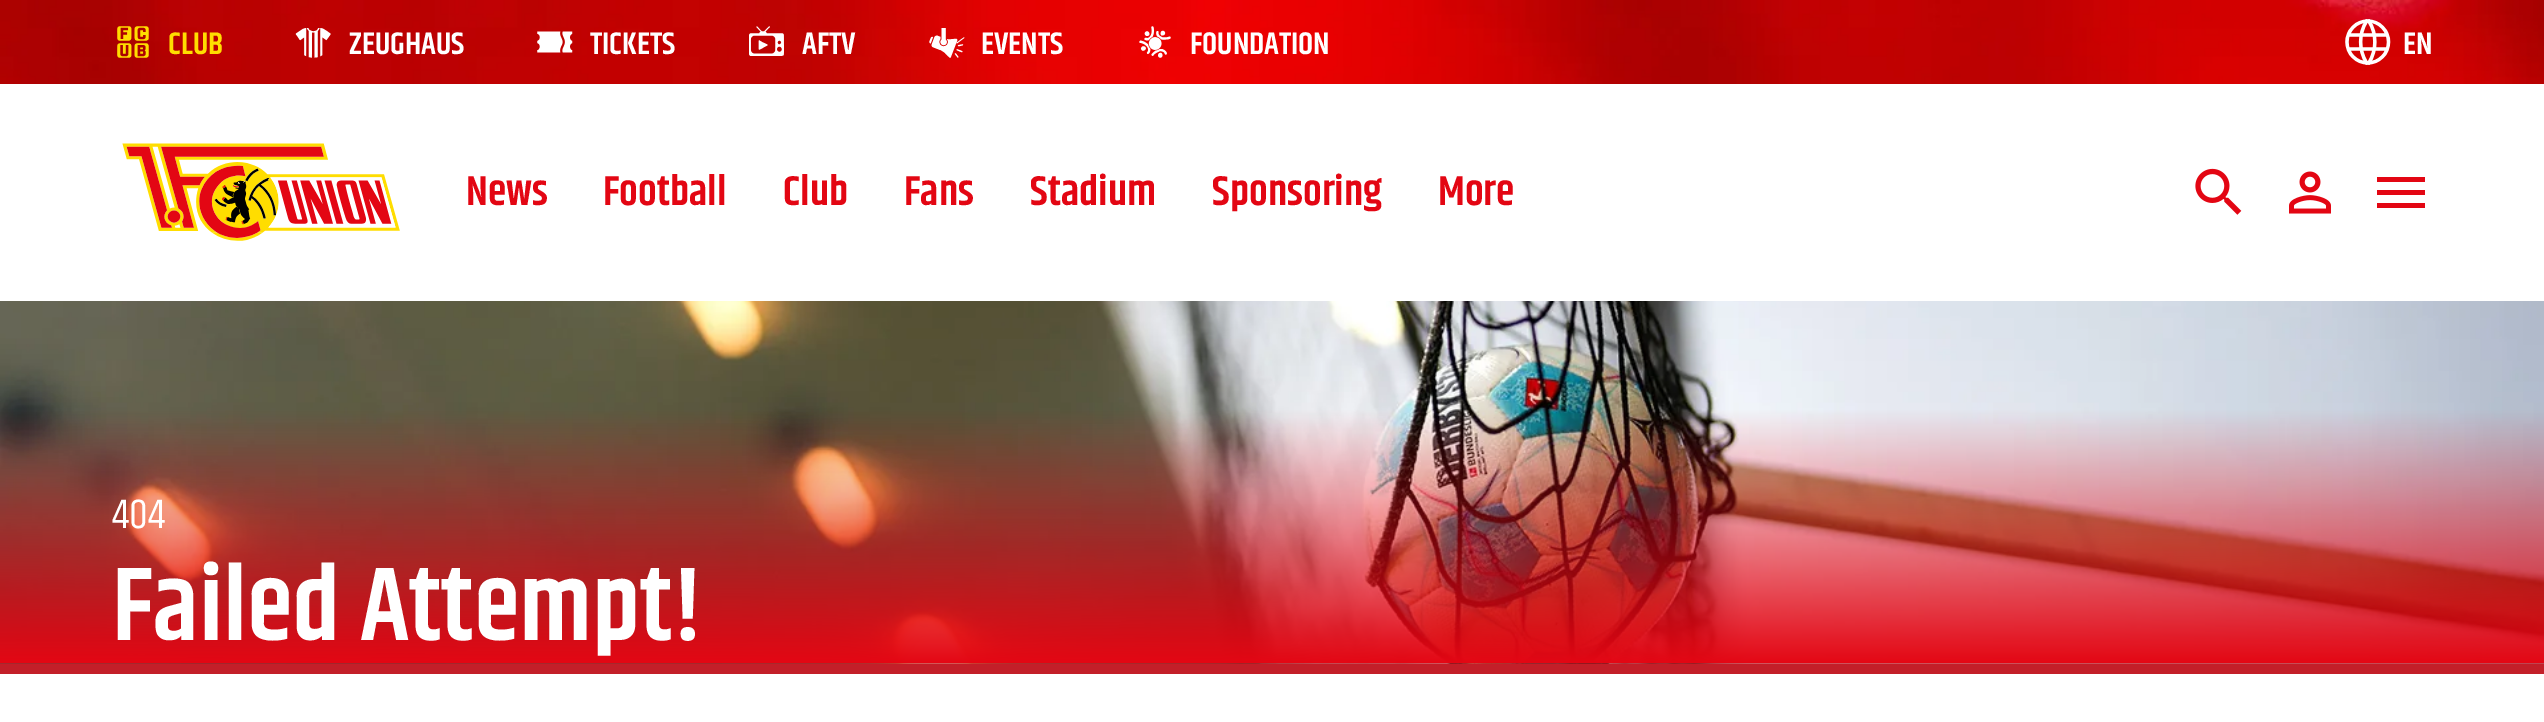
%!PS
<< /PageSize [2544 722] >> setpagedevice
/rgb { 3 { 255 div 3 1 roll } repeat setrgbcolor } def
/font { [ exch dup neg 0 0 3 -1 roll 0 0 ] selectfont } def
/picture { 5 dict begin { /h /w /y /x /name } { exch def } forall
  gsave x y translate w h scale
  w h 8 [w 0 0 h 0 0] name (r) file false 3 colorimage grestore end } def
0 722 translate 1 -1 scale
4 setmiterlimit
255 255 255 rgb
0 0 2544 722 rectfill
(img/1.rgb) 0 0 2544 84 picture
(img/2.rgb) 117 26 32 32 picture
(img/3.rgb) 295 28 36 30 picture
(img/4.rgb) 537 31 36 22 picture
(img/5.rgb) 749 26 35 30 picture
(img/6.rgb) 929 28 36 30 picture
(img/7.rgb) 1139 26 32 32 picture
(img/8.rgb) 2345 19 46 46 picture
(img/9.rgb) 122 143 278 98 picture
(img/10.rgb) 2195 168 47 47 picture
(img/11.rgb) 2289 171 42 43 picture
227 6 19 rgb
2377 177 moveto 2425 177 lineto 2425 182 lineto 2377 182 lineto closepath 2377 190 moveto 2425 190 lineto 2425 195 lineto 2377 195 lineto closepath 2377 203 moveto 2425 203 lineto 2425 208 lineto 2377 208 lineto closepath fill
195 31 41 rgb
0 663 2544 11 rectfill
(img/12.rgb) 0 301 2544 363 picture
/Khand-SemiBold 31.5 font
255 221 0 rgb
168 54 moveto (CLUB) show
255 255 255 rgb
[
  [(ZEUGHAUS) 349 54]
  [(TICKETS) 590 54]
  [(AFTV) 802 54]
  [(EVENTS) 981 54]
  [(FOUNDATION) 1190 54]
  [(EN) 2403 54]
] { aload pop moveto show } forall
/Khand-SemiBold 42 font
227 6 19 rgb
[
  [(News) 466 205]
  [(Football) 603 205]
  [(Club) 783 205]
  [(Fans) 904 205]
  [(Stadium) 1030 205]
  [(Sponsoring) 1212 205]
  [(More) 1438 205]
] { aload pop moveto show } forall
/Khand-Regular 42 font
255 255 255 rgb
112 528 moveto (404) show
/Khand-SemiBold 105 font
112 640 moveto (Failed Attempt!) show
showpage
